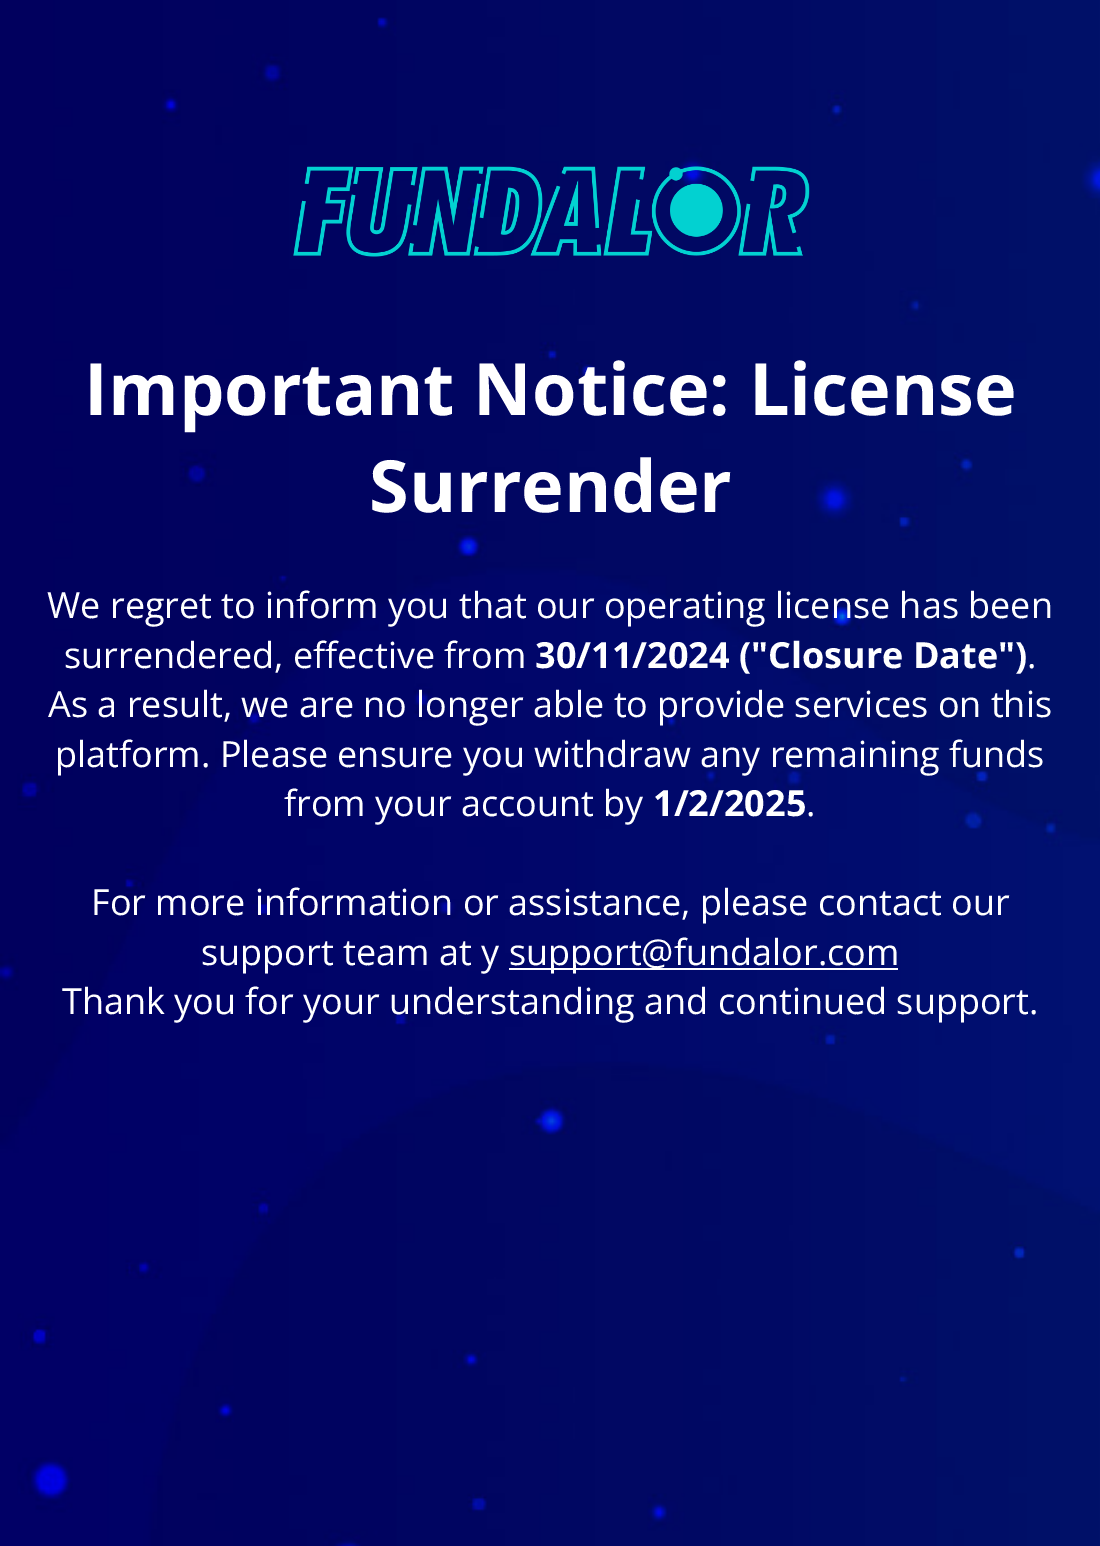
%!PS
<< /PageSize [1100 1546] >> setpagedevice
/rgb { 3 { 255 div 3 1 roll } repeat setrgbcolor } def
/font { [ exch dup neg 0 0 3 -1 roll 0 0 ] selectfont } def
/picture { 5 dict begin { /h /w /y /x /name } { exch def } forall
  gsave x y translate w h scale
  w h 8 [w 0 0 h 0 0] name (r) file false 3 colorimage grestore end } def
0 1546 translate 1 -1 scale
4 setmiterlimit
255 255 255 rgb
0 0 1100 1546 rectfill
(img/1.rgb) 0 0 1100 1546 picture
(img/2.rgb) 293 166 517 91 picture
509 968 389 2 rectfill
/OpenSans-Bold 72 font
84 415 moveto (Important Notice: License) show
369 512 moveto (Surrender) show
/OpenSans-Regular 36 font
47 618 moveto (We regret to inform you that our operating license has been) show
64 668 moveto (surrendered, effective from) show
/OpenSans-Bold 36 font
535 668 moveto (30/11/2024 \("Closure Date"\)) show
/OpenSans-Regular 36 font
[
  [(.) 1027 668]
  [(As a result, we are no longer able to provide services on this) 48 717]
  [(platform. Please ensure you withdraw any remaining funds) 55 767]
  [(from your account by) 284 816]
] { aload pop moveto show } forall
/OpenSans-Bold 36 font
653 816 moveto (1/2/2025) show
/OpenSans-Regular 36 font
[
  [(.) 806 816]
  [(For more information or assistance, please contact our) 91 915]
  [(support team at y) 201 965]
  [(support@fundalor.com) 509 965]
  [(Thank you for your understanding and continued support.) 62 1014]
] { aload pop moveto show } forall
showpage
